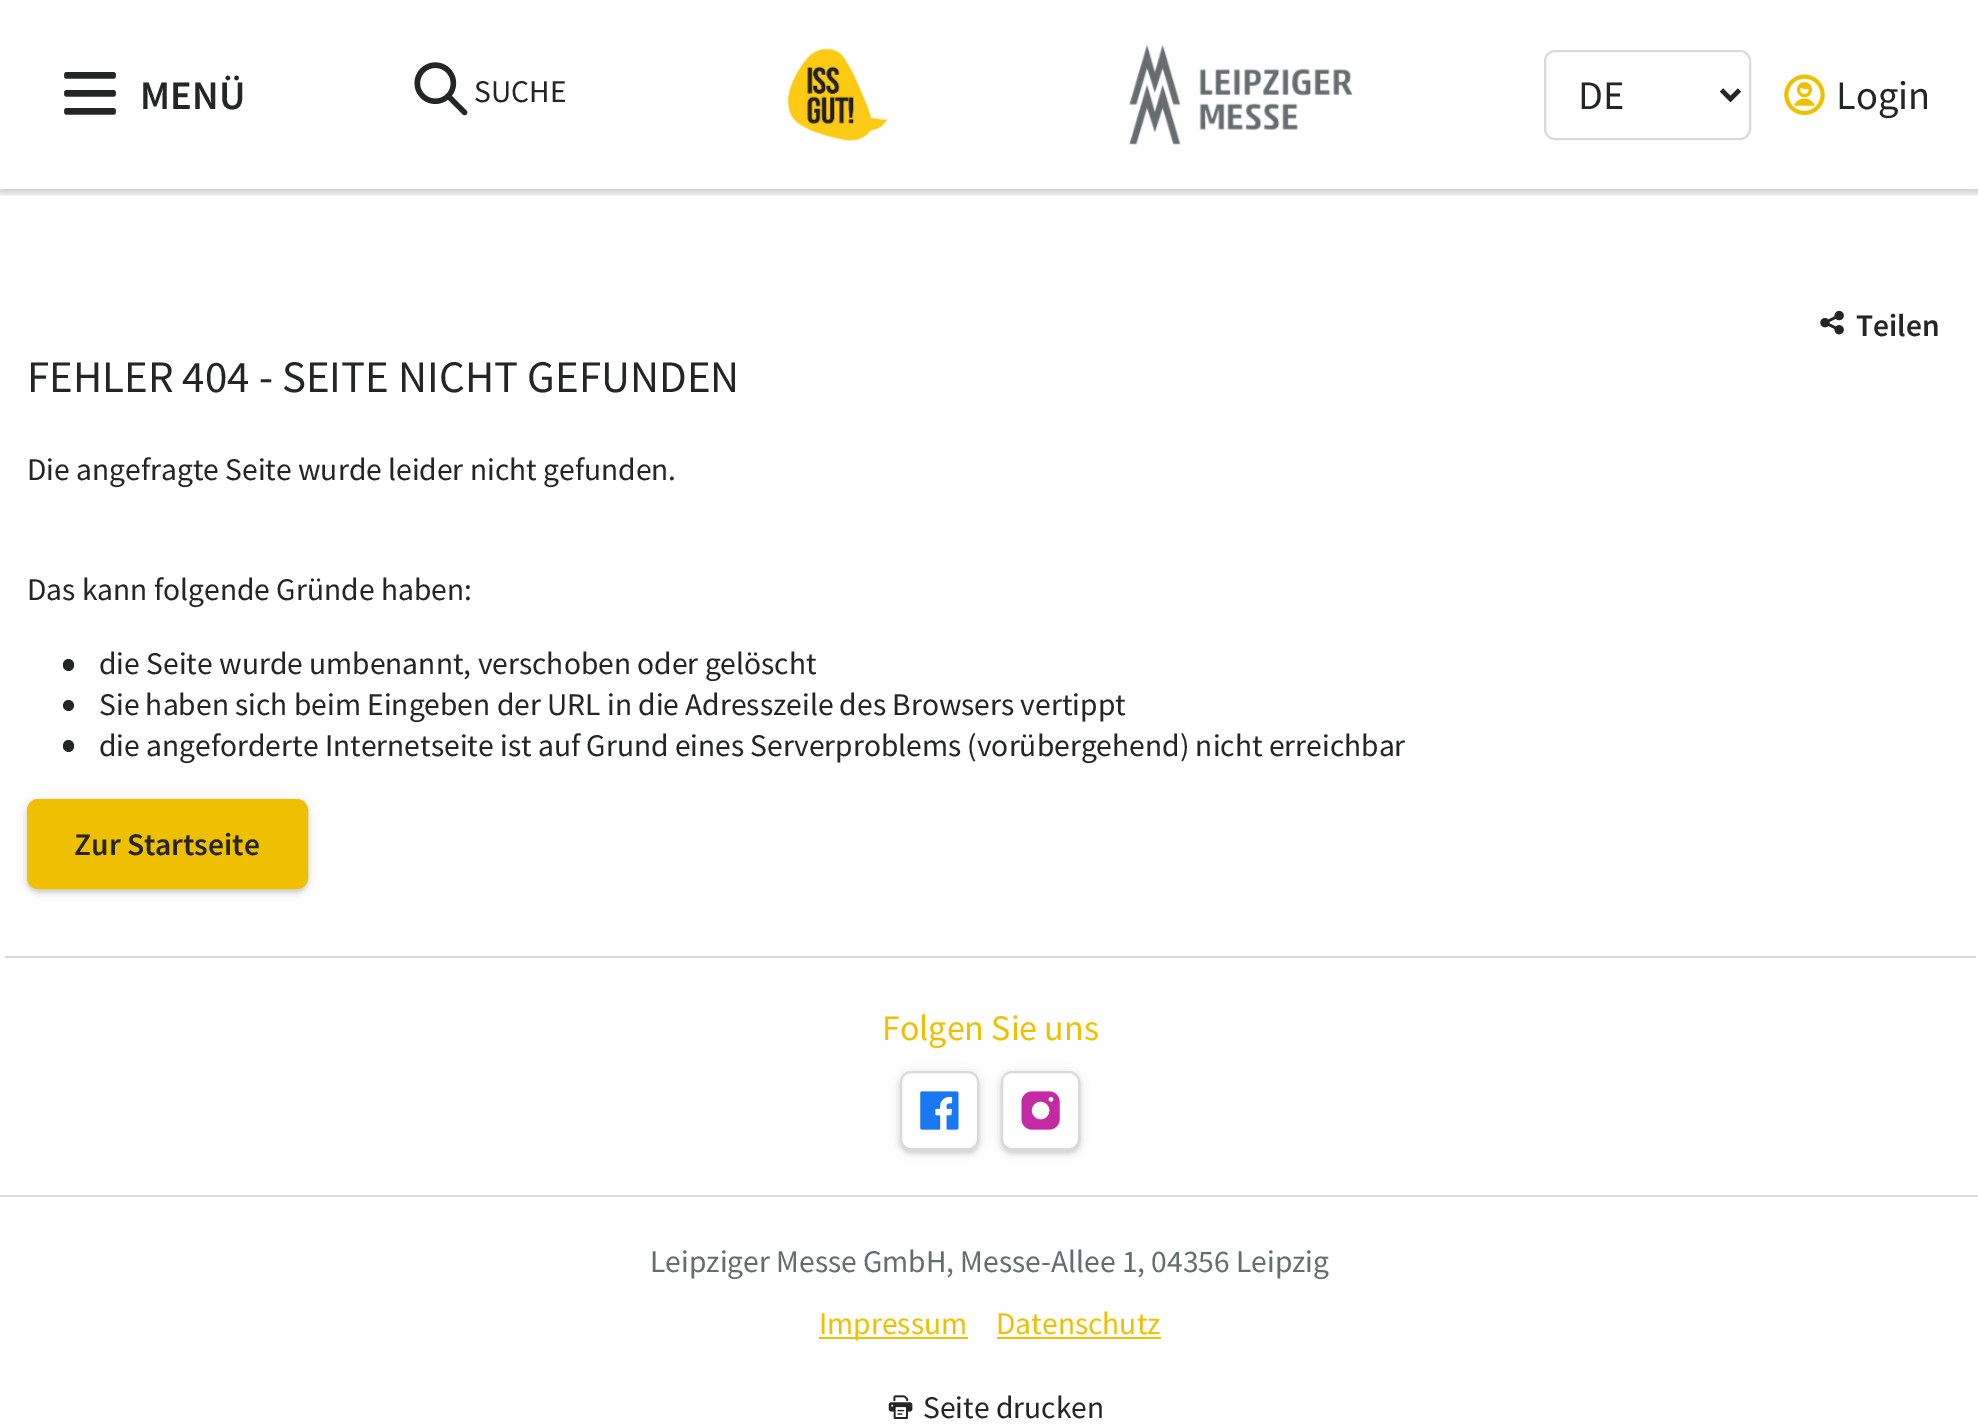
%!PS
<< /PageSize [1978 1426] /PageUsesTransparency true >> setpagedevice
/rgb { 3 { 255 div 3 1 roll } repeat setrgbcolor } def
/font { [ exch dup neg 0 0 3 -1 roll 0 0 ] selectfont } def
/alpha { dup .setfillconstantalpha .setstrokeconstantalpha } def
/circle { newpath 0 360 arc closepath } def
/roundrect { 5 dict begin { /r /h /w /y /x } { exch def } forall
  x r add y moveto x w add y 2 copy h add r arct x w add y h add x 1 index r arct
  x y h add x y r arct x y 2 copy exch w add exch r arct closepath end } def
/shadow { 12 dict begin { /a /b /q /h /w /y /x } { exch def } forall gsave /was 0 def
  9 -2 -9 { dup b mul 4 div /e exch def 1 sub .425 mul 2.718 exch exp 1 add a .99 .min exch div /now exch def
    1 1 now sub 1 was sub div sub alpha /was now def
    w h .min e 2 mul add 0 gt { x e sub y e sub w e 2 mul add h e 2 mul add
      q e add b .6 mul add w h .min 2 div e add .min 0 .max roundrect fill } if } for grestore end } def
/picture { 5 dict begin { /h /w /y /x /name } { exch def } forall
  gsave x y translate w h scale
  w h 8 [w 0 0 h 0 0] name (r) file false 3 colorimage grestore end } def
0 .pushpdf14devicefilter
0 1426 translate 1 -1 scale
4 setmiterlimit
255 255 255 rgb
0 0 1978 1426 rectfill
gsave
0 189 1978 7 rectclip
0 0 0 rgb
0 2 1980 189 0 5.5 0.12 shadow
0 5 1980 189 0 2 0.1 shadow
grestore
(img/1.rgb) 64 72 52 43 picture
(img/2.rgb) 414 62 54 54 picture
(img/3.rgb) 787 48 102 93 picture
(img/4.rgb) 1129 44 224 101 picture
217 218 218 rgb
2 setlinewidth
1545 51 205 88 10 roundrect stroke
36 38 38 rgb
4.5 setlinewidth
1721.5 90 moveto 1730.5 99 lineto 1739.5 90 lineto stroke
(img/5.rgb) 1784 74 41 41 picture
(img/6.rgb) 1820 310 24 25 picture
63 659 11 12 5.5 roundrect fill
68.5 705.5 5.5 circle fill
63 740 11 12 5.5 roundrect fill
0 0 0 rgb
27 801 281 90 11 5.5 0.12 shadow
27 803 281 90 11 2 0.1 shadow
239 192 2 rgb
28 800 279 88 10 roundrect gsave fill grestore
2 setlinewidth
stroke
217 218 218 rgb
5 956 1971 2 rectfill
0 0 0 rgb
900 1073 79 79 11 5.5 0.12 shadow
900 1076 79 78 11 2 0.1 shadow
255 255 255 rgb
901 1072 77 77 10 roundrect gsave fill grestore
217 218 218 rgb
stroke
(img/7.rgb) 920 1091 39 39 picture
0 0 0 rgb
1001 1073 79 79 11 5.5 0.12 shadow
1001 1076 79 78 11 2 0.1 shadow
255 255 255 rgb
1002 1072 77 77 10 roundrect gsave fill grestore
217 218 218 rgb
stroke
(img/8.rgb) 1021 1091 39 39 picture
[
  [0 1195 1978 2 217 218 218]
  [819 1337 149 2 239 192 2]
  [997 1337 164 2 239 192 2]
] { aload pop rgb rectfill } forall
(img/9.rgb) 888 1395 25 24 picture
/SourceSansPro-SemiBold 40.5 font
36 38 38 rgb
140 109 moveto (MENÜ) show
/SourceSansPro-Regular 31.5 font
474 102 moveto (SUCHE) show
/SourceSansPro-Regular 40.5 font
1578 109 moveto (DE) show
1836 109 moveto (Login) show
/SourceSansPro-SemiBold 31.5 font
1856 336 moveto (Teilen) show
/SourceSansPro-Regular 45 font
27 392 moveto (FEHLER 404 - SEITE NICHT GEFUNDEN) show
/SourceSansPro-Regular 31.5 font
[
  [(Die angefragte Seite wurde leider nicht gefunden.) 27 480]
  [(Das kann folgende Gründe haben:) 27 600]
  [(die Seite wurde umbenannt, verschoben oder gelöscht) 99 674]
  [(Sie haben sich beim Eingeben der URL in die Adresszeile des Browsers vertippt) 99 715]
  [(die angeforderte Internetseite ist auf Grund eines Serverproblems \(vorübergehend\) nicht erreichbar) 99 756]
] { aload pop moveto show } forall
/SourceSansPro-SemiBold 31.5 font
74 855 moveto (Zur Startseite) show
/SourceSansPro-Regular 36 font
239 192 2 rgb
882 1040 moveto (Folgen Sie uns) show
/SourceSansPro-Regular 31.5 font
103 108 108 rgb
650 1272 moveto (Leipziger Messe GmbH, Messe-Allee 1, 04356 Leipzig) show
239 192 2 rgb
819 1334 moveto (Impressum) show
996 1334 moveto (Datenschutz) show
36 38 38 rgb
923 1418 moveto (Seite drucken) show
.poppdf14devicefilter showpage
